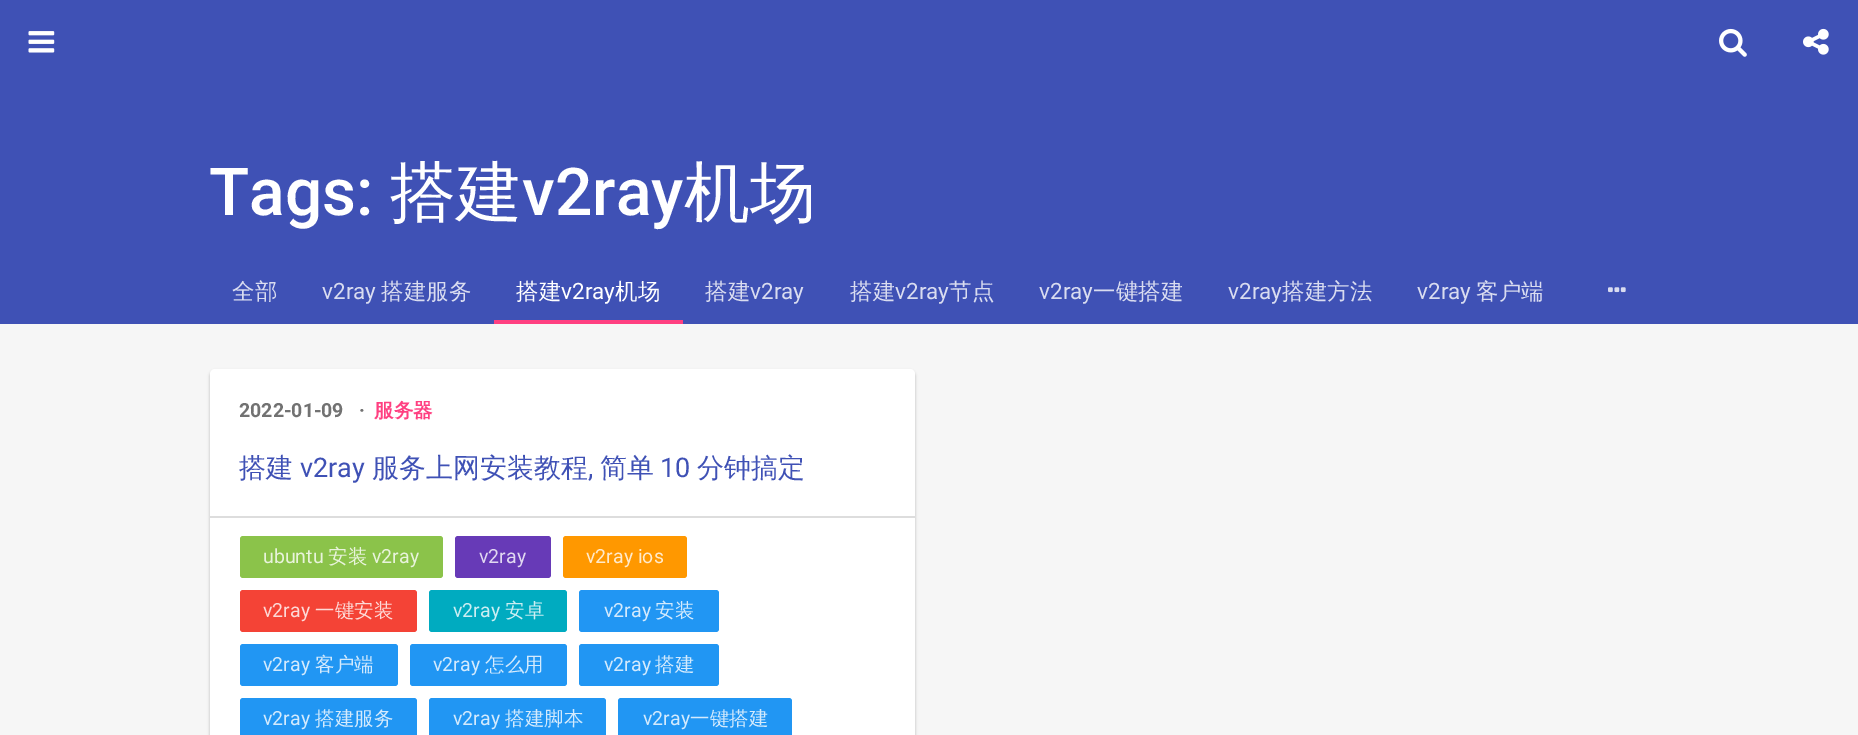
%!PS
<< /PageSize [1858 735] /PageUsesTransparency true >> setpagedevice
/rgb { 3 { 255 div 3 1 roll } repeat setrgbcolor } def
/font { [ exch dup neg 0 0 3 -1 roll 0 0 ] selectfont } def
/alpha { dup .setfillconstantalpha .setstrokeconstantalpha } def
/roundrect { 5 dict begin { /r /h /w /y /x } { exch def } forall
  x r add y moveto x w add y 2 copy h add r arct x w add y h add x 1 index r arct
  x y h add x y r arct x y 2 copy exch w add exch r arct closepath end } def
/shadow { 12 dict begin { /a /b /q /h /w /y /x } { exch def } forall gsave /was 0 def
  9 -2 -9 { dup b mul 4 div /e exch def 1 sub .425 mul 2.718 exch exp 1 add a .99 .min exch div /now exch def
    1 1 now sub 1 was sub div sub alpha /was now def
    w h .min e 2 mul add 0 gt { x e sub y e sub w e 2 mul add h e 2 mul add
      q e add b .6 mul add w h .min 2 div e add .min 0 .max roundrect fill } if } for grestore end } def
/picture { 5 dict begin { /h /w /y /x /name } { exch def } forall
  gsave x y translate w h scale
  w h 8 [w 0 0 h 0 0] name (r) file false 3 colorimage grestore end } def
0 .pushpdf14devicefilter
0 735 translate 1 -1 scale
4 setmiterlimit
246 246 246 rgb
0 0 1858 735 rectfill
63 81 181 rgb
0 0 1858 324 rectfill
(img/1.rgb) 28 31 27 22 picture
(img/2.rgb) 1719 28 28 29 picture
(img/3.rgb) 1803 28 26 27 picture
255 64 129 rgb
494 320 189 4 rectfill
(img/4.rgb) 1608 287 18 6 picture
151 151 151 rgb
210 371 705 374 5 1.5 0.58 shadow
255 255 255 rgb
210 369 705 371 5 roundrect fill
221 221 221 rgb
210 516 705 2 rectfill
139 195 74 rgb
240 536 203 42 3 roundrect fill
103 58 183 rgb
455 536 96 42 3 roundrect fill
255 152 0 rgb
563 536 124 42 3 roundrect fill
244 67 54 rgb
240 590 177 42 3 roundrect fill
0 171 192 rgb
429 590 138 42 3 roundrect fill
33 150 243 rgb
579 590 140 42 3 roundrect fill
240 644 158 42 3 roundrect fill
410 644 157 42 3 roundrect fill
579 644 140 42 3 roundrect fill
240 698 177 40 3 roundrect fill
429 698 177 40 3 roundrect fill
618 698 174 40 3 roundrect fill
/Roboto-Medium 66 font
255 255 255 rgb
209 215 moveto (Tags:) show
/WenQuanYiZenHei-Medium 66 font
390 215 moveto (搭建) show
/Roboto-Medium 66 font
522 215 moveto (v2ray) show
/WenQuanYiZenHei-Medium 66 font
684 215 moveto (机场) show
/WenQuanYiZenHei-Medium 22.5 font
217 220 240 rgb
232 299 moveto (全部) show
/Roboto-Regular 22.5 font
322 299 moveto (v2ray) show
/WenQuanYiZenHei-Medium 22.5 font
381 299 moveto (搭建服务) show
255 255 255 rgb
516 299 moveto (搭建) show
/Roboto-Regular 22.5 font
561 299 moveto (v2ray) show
/WenQuanYiZenHei-Medium 22.5 font
615 299 moveto (机场) show
217 220 240 rgb
705 299 moveto (搭建) show
/Roboto-Regular 22.5 font
750 299 moveto (v2ray) show
/WenQuanYiZenHei-Medium 22.5 font
850 299 moveto (搭建) show
/Roboto-Regular 22.5 font
895 299 moveto (v2ray) show
/WenQuanYiZenHei-Medium 22.5 font
949 299 moveto (节点) show
/Roboto-Regular 22.5 font
1039 299 moveto (v2ray) show
/WenQuanYiZenHei-Medium 22.5 font
1093 299 moveto (一键搭建) show
/Roboto-Regular 22.5 font
1228 299 moveto (v2ray) show
/WenQuanYiZenHei-Medium 22.5 font
1282 299 moveto (搭建方法) show
/Roboto-Regular 22.5 font
1417 299 moveto (v2ray) show
/WenQuanYiZenHei-Medium 22.5 font
1476 299 moveto (客户端) show
/Roboto-Bold 19.5 font
114 114 114 rgb
239 417 moveto (2022-01-09) show
359 417 moveto (·) show
/WenQuanYiZenHei-Bold 19.5 font
255 64 129 rgb
374 417 moveto (服务器) show
/WenQuanYiZenHei-Medium 27 font
63 81 181 rgb
239 477 moveto (搭建) show
/Roboto-Regular 27 font
300 477 moveto (v2ray) show
/WenQuanYiZenHei-Medium 27 font
372 477 moveto (服务上网安装教程) show
/Roboto-Regular 27 font
588 477 moveto (,) show
/WenQuanYiZenHei-Medium 27 font
600 477 moveto (简单) show
/Roboto-Regular 27 font
660 477 moveto (10) show
/WenQuanYiZenHei-Medium 27 font
697 477 moveto (分钟搞定) show
/Roboto-Regular 19.5 font
232 243 219 rgb
263 563 moveto (ubuntu) show
/WenQuanYiZenHei-Medium 19.5 font
328 563 moveto (安装) show
/Roboto-Regular 19.5 font
372 563 moveto (v2ray) show
225 216 241 rgb
479 563 moveto (v2ray) show
255 234 204 rgb
586 563 moveto (v2ray ios) show
253 217 215 rgb
263 617 moveto (v2ray) show
/WenQuanYiZenHei-Medium 19.5 font
315 617 moveto (一键安装) show
/Roboto-Regular 19.5 font
204 238 242 rgb
453 617 moveto (v2ray) show
/WenQuanYiZenHei-Medium 19.5 font
505 617 moveto (安卓) show
/Roboto-Regular 19.5 font
211 234 253 rgb
604 617 moveto (v2ray) show
/WenQuanYiZenHei-Medium 19.5 font
655 617 moveto (安装) show
/Roboto-Regular 19.5 font
263 671 moveto (v2ray) show
/WenQuanYiZenHei-Medium 19.5 font
315 671 moveto (客户端) show
/Roboto-Regular 19.5 font
433 671 moveto (v2ray) show
/WenQuanYiZenHei-Medium 19.5 font
485 671 moveto (怎么用) show
/Roboto-Regular 19.5 font
604 671 moveto (v2ray) show
/WenQuanYiZenHei-Medium 19.5 font
655 671 moveto (搭建) show
/Roboto-Regular 19.5 font
263 725 moveto (v2ray) show
/WenQuanYiZenHei-Medium 19.5 font
315 725 moveto (搭建服务) show
/Roboto-Regular 19.5 font
453 725 moveto (v2ray) show
/WenQuanYiZenHei-Medium 19.5 font
505 725 moveto (搭建脚本) show
/Roboto-Regular 19.5 font
643 725 moveto (v2ray) show
/WenQuanYiZenHei-Medium 19.5 font
690 725 moveto (一键搭建) show
.poppdf14devicefilter showpage
